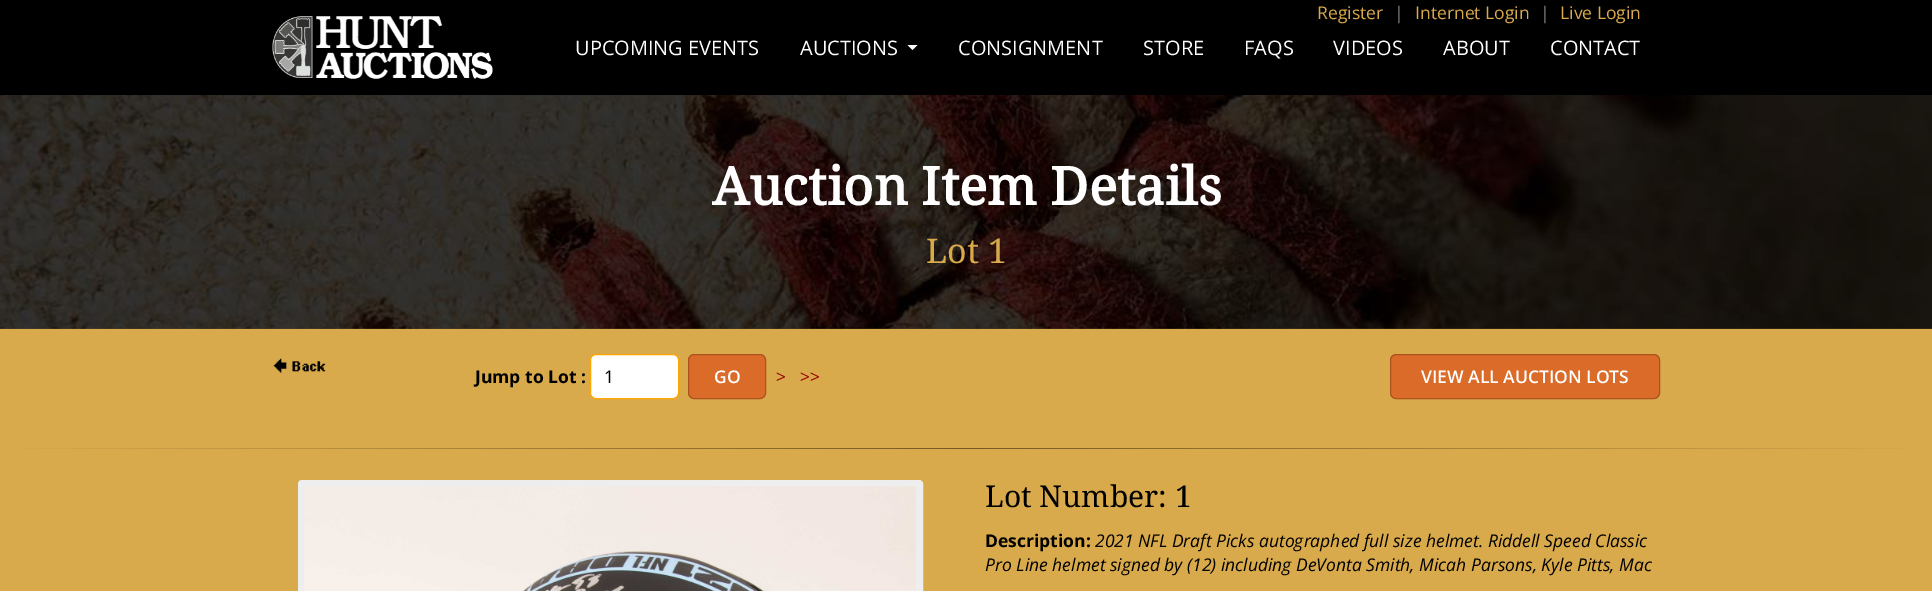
%!PS
<< /PageSize [1932 591] >> setpagedevice
/rgb { 3 { 255 div 3 1 roll } repeat setrgbcolor } def
/font { [ exch dup neg 0 0 3 -1 roll 0 0 ] selectfont } def
/roundrect { 5 dict begin { /r /h /w /y /x } { exch def } forall
  x r add y moveto x w add y 2 copy h add r arct x w add y h add x 1 index r arct
  x y h add x y r arct x y 2 copy exch w add exch r arct closepath end } def
/picture { 5 dict begin { /h /w /y /x /name } { exch def } forall
  gsave x y translate w h scale
  w h 8 [w 0 0 h 0 0] name (r) file false 3 colorimage grestore end } def
0 591 translate 1 -1 scale
4 setmiterlimit
216 170 76 rgb
0 0 1932 591 rectfill
0 0 0 rgb
0 0 1932 95 rectfill
(img/1.rgb) 272 16 221 63 picture
255 255 255 rgb
907.5 45 moveto 917.5 45 lineto 912.5 50 lineto closepath fill
(img/2.rgb) 0 95 1932 234 picture
(img/3.rgb) 273 358 53 15 picture
590.5 354.5 88 44 5.5 roundrect gsave fill grestore
255 165 0 rgb
stroke
219 107 40 rgb
688.5 354.5 77 44 5.5 roundrect gsave fill grestore
173 83 30 rgb
stroke
219 107 40 rgb
1390.5 354.5 269 44 5.5 roundrect gsave fill grestore
173 83 30 rgb
stroke
gsave 25 448 moveto 1908 448 lineto 1908 449 lineto 25 449 lineto closepath clip newpath
<< /ShadingType 2 /ColorSpace /DeviceRGB /Coords [0 448 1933 448] /Extend [true true] /Function << /FunctionType 3 /Domain [0 1] /Functions [<< /FunctionType 2 /Domain [0 1] /C0 [0.847 0.667 0.298] /C1 [0.467 0.349 0.145] /N 1 >> << /FunctionType 2 /Domain [0 1] /C0 [0.467 0.349 0.145] /C1 [0.847 0.667 0.298] /N 1 >>] /Bounds [0.5] /Encode [0 1 0 1] >> >> shfill grestore
238 238 238 rgb
301 483 619 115 1 roundrect gsave fill grestore
6 setlinewidth
stroke
(img/4.rgb) 304 486 612 105 picture
/OpenSans-Regular 17.5 font
216 170 76 rgb
1317 19 moveto (Register) show
123 123 123 rgb
1394 19 moveto (|) show
216 170 76 rgb
1415 19 moveto (Internet Login) show
123 123 123 rgb
1540 19 moveto (|) show
216 170 76 rgb
1560 19 moveto (Live Login) show
/OpenSans-Regular 20 font
255 255 255 rgb
[
  [(UPCOMING EVENTS) 575 55]
  [(AUCTIONS) 800 55]
  [(CONSIGNMENT) 958 55]
  [(STORE) 1143 55]
  [(FAQS) 1244 55]
  [(VIDEOS) 1333 55]
  [(ABOUT) 1443 55]
  [(CONTACT) 1550 55]
] { aload pop moveto show } forall
/DroidSerif-Bold 52.5 font
712 205 moveto (Auction Item Details) show
/DroidSerif-Regular 34 font
216 170 76 rgb
926 263 moveto (Lot 1) show
/OpenSans-Bold 17.5 font
0 0 0 rgb
475 383 moveto (Jump to Lot :) show
/OpenSans-Regular 17.5 font
604 383 moveto (1) show
/OpenSans-SemiBold 17.5 font
255 255 255 rgb
714 383 moveto (GO) show
/OpenSans-Regular 17.5 font
153 0 0 rgb
776 383 moveto (>) show
800 383 moveto (>>) show
/OpenSans-SemiBold 17.5 font
255 255 255 rgb
1421 383 moveto (VIEW ALL AUCTION LOTS) show
/DroidSerif-Regular 30 font
0 0 0 rgb
985 507 moveto (Lot Number: 1) show
/OpenSans-Bold 17.5 font
985 547 moveto (Description:) show
/OpenSans-Italic 17.5 font
1095 547 moveto (2021 NFL Draft Picks autographed full size helmet. Riddell Speed Classic) show
985 571 moveto (Pro Line helmet signed by \(12\) including DeVonta Smith, Micah Parsons, Kyle Pitts, Mac) show
showpage
